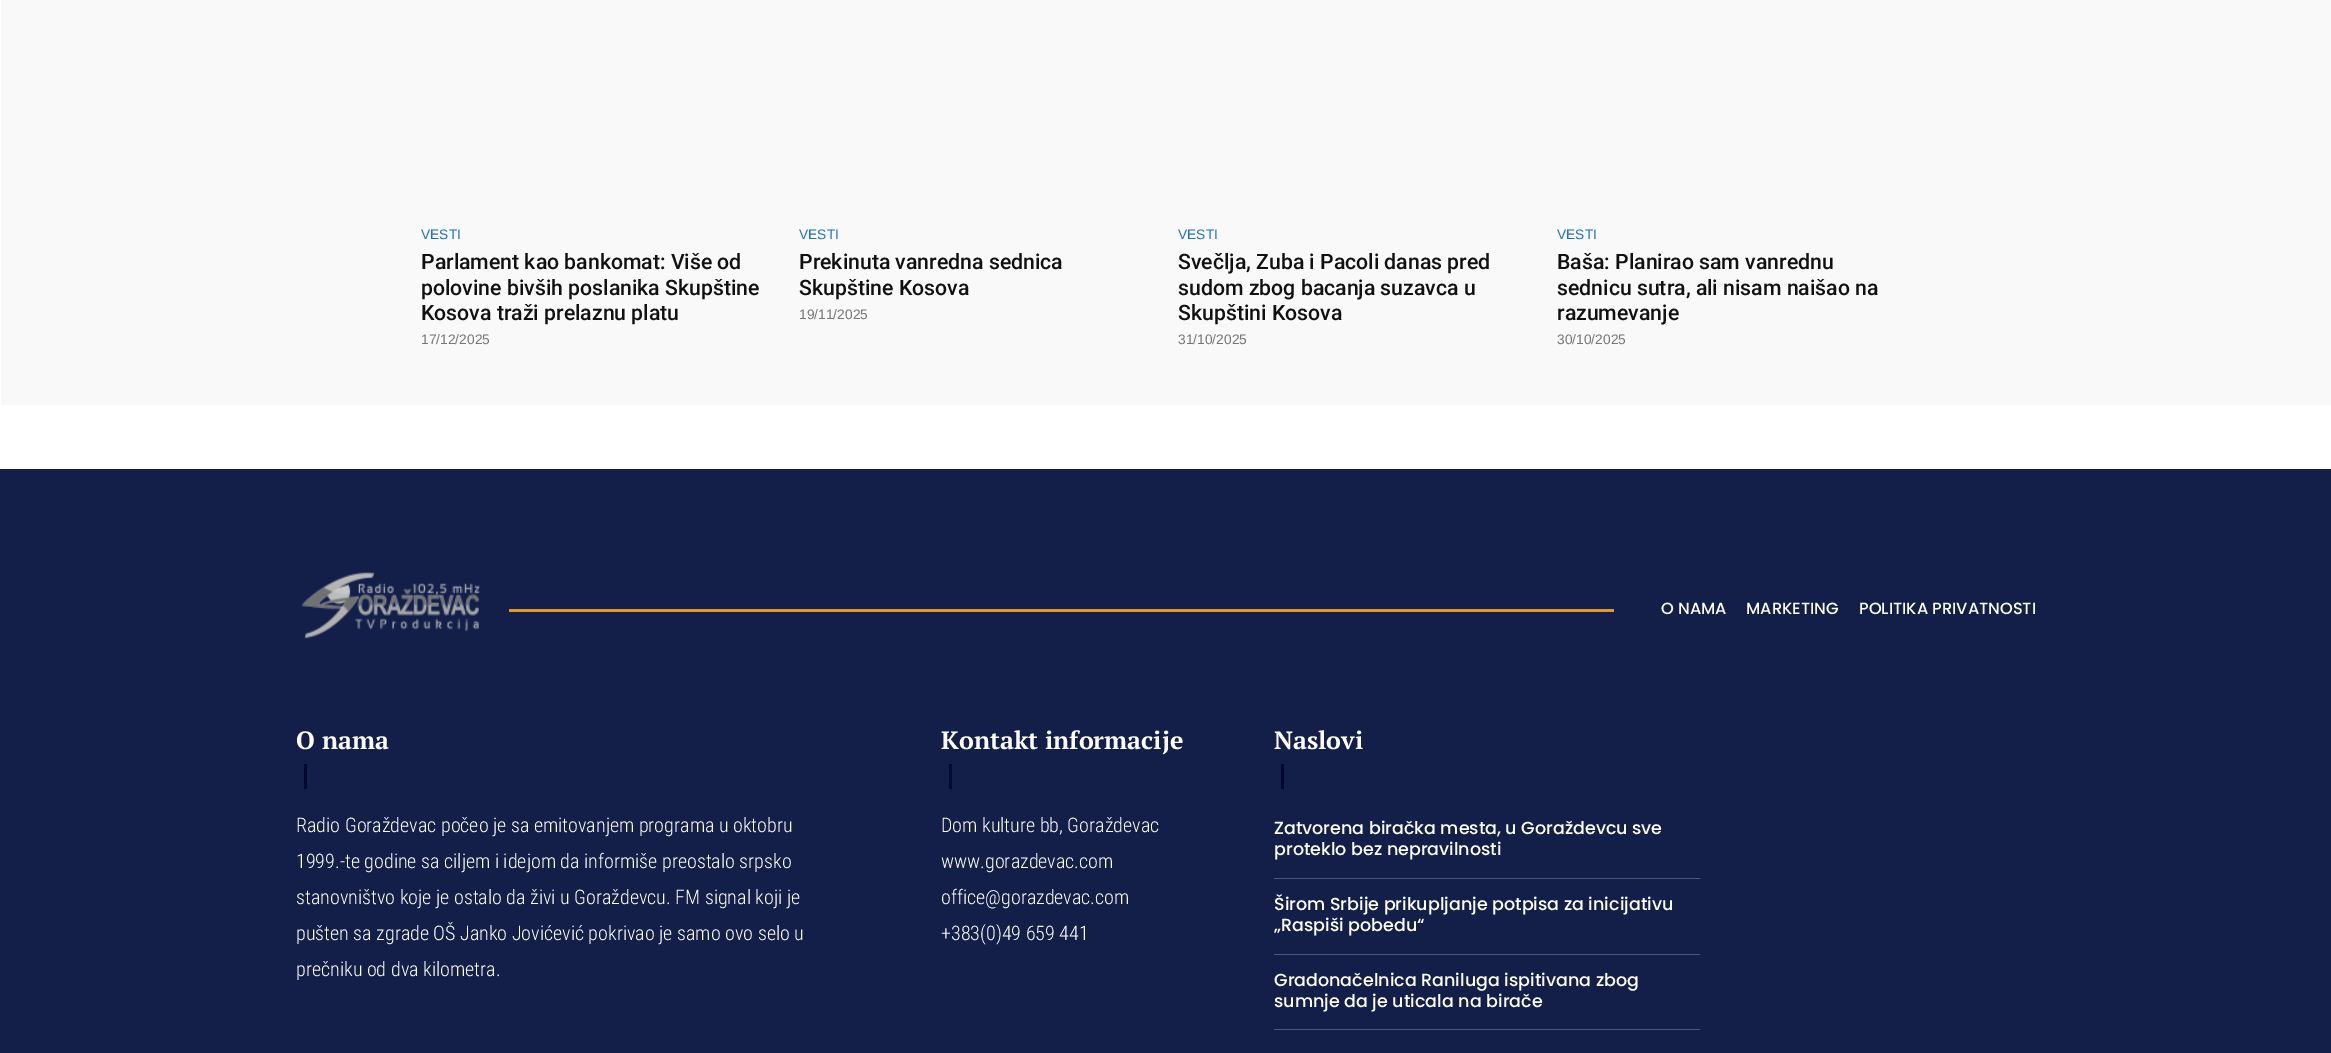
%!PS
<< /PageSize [2331 1053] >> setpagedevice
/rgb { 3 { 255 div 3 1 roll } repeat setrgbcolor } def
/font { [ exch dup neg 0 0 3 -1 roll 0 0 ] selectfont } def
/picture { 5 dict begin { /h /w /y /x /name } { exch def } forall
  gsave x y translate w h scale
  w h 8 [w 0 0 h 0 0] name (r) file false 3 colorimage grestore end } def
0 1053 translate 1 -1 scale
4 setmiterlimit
255 255 255 rgb
0 0 2331 1053 rectfill
249 249 249 rgb
1 0 2330 405 rectfill
19 31 73 rgb
0 469 2331 584 rectfill
(img/1.rgb) 301 572 180 67 picture
[
  [509 609 1105 3 221 153 51]
  [304 764 3 25 0 6 45]
  [949 764 3 25 0 6 45]
  [1281 764 3 25 0 6 45]
  [1274 878 426 1 78 87 119]
  [1274 954 426 1 78 87 119]
  [1274 1029 426 1 78 87 119]
] { aload pop rgb rectfill } forall
/LiberationSans-Regular 13.75 font
30 115 190 rgb
421 239 moveto (VESTI) show
/Roboto-Medium 21.25 font
17 17 17 rgb
[
  [(Parlament kao bankomat: Više od) 421 269]
  [(polovine bivših poslanika Skupštine) 421 295]
  [(Kosova traži prelaznu platu) 421 320]
] { aload pop moveto show } forall
/LiberationSans-Regular 13.75 font
118 118 118 rgb
421 344 moveto (17/12/2025) show
30 115 190 rgb
799 239 moveto (VESTI) show
/Roboto-Medium 21.25 font
17 17 17 rgb
799 269 moveto (Prekinuta vanredna sednica) show
799 295 moveto (Skupštine Kosova) show
/LiberationSans-Regular 13.75 font
118 118 118 rgb
799 319 moveto (19/11/2025) show
30 115 190 rgb
1178 239 moveto (VESTI) show
/Roboto-Medium 21.25 font
17 17 17 rgb
[
  [(Svečlja, Zuba i Pacoli danas pred) 1178 269]
  [(sudom zbog bacanja suzavca u) 1178 295]
  [(Skupštini Kosova) 1178 320]
] { aload pop moveto show } forall
/LiberationSans-Regular 13.75 font
118 118 118 rgb
1178 344 moveto (31/10/2025) show
30 115 190 rgb
1557 239 moveto (VESTI) show
/Roboto-Medium 21.25 font
17 17 17 rgb
[
  [(Baša: Planirao sam vanrednu) 1557 269]
  [(sednicu sutra, ali nisam naišao na) 1557 295]
  [(razumevanje) 1557 320]
] { aload pop moveto show } forall
/LiberationSans-Regular 13.75 font
118 118 118 rgb
1557 344 moveto (30/10/2025) show
/Poppins-Medium 16.25 font
255 255 255 rgb
[
  [(O NAMA) 1661 614]
  [(MARKETING) 1746 614]
  [(POLITIKA PRIVATNOSTI) 1859 614]
] { aload pop moveto show } forall
/PTSerif-Bold 25 font
296 749 moveto (O nama) show
/RobotoCondensed-Light 20 font
[
  [(Radio Goraždevac počeo je sa emitovanjem programa u oktobru) 296 832]
  [(1999.-te godine sa ciljem i idejom da informiše preostalo srpsko) 296 868]
  [(stanovništvo koje je ostalo da živi u Goraždevcu. FM signal koji je) 296 904]
  [(pušten sa zgrade OŠ Janko Jovićević pokrivao je samo ovo selo u) 296 940]
  [(prečniku od dva kilometra.) 296 976]
] { aload pop moveto show } forall
/PTSerif-Bold 25 font
941 749 moveto (Kontakt informacije) show
/RobotoCondensed-Light 20 font
[
  [(Dom kulture bb, Goraždevac) 941 832]
  [(www.gorazdevac.com) 941 868]
  [(office@gorazdevac.com) 941 904]
  [(+383\(0\)49 659 441) 941 940]
] { aload pop moveto show } forall
/PTSerif-Bold 25 font
1274 749 moveto (Naslovi) show
/Poppins-Medium 17.5 font
[
  [(Zatvorena biračka mesta, u Goraždevcu sve) 1274 834]
  [(proteklo bez nepravilnosti) 1274 855]
  [(Širom Srbije prikupljanje potpisa za inicijativu) 1274 910]
  [(„Raspiši pobedu“) 1274 931]
  [(Gradonačelnica Raniluga ispitivana zbog) 1274 986]
  [(sumnje da je uticala na birače) 1274 1007]
] { aload pop moveto show } forall
showpage
